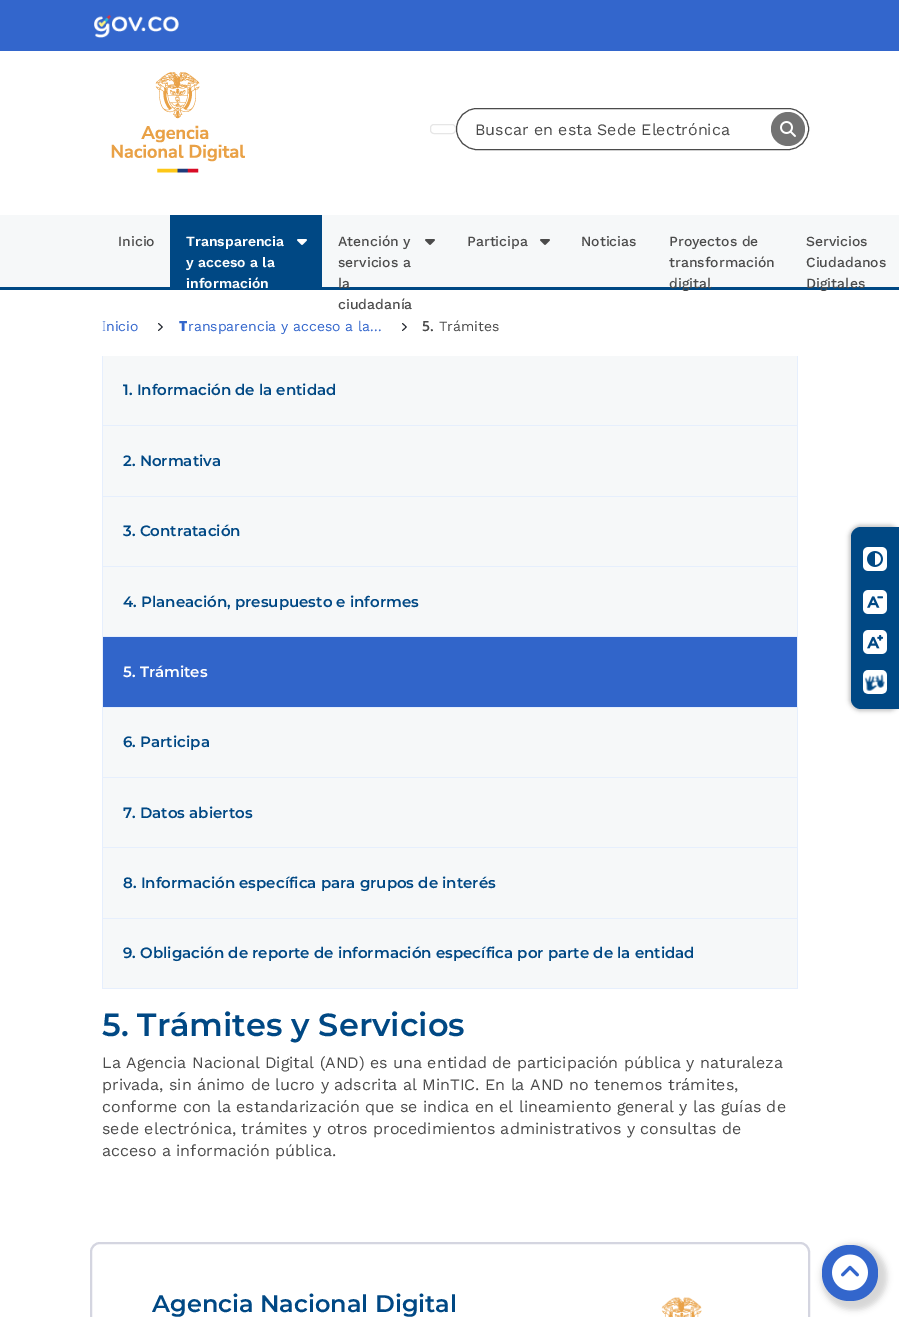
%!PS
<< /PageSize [899 1317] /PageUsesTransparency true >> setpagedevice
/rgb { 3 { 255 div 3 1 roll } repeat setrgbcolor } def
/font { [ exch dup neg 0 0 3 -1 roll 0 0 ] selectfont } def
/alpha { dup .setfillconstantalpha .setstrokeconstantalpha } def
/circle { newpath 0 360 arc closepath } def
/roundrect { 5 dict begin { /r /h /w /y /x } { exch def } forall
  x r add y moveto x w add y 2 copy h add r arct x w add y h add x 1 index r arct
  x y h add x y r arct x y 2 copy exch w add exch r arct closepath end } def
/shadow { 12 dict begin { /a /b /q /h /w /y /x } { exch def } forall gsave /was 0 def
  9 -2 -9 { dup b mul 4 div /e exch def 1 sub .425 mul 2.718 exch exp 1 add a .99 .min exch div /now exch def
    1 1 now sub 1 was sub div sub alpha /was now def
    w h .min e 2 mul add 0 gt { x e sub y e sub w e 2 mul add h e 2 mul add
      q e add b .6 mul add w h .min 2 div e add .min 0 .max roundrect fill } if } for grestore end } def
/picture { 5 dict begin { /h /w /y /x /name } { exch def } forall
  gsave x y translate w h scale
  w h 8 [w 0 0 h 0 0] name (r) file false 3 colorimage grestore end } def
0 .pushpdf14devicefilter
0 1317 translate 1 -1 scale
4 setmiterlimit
255 255 255 rgb
0 0 899 1317 rectfill
51 102 204 rgb
0 0 899 51 rectfill
(img/1.rgb) 94 14 85 24 picture
0 0 0 rgb
849 525 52 186 12 2 0.23 shadow
0 72 132 rgb
861 527 moveto 899 527 lineto 899 709 lineto 861 709 lineto 855.5 709 851 704.5 851 699 curveto 851 537 lineto 851 531.5 855.5 527 861 527 curveto closepath fill
(img/2.rgb) 863 547 24 24 picture
(img/3.rgb) 863 590 24 24 picture
(img/4.rgb) 863 630 24 24 picture
(img/5.rgb) 863 670 24 24 picture
(img/6.rgb) 111 72 134 101 picture
230 230 230 rgb
430.5 124.5 25 9 3.5 roundrect stroke
75 75 75 rgb
456.5 108.5 352 41 20.5 roundrect stroke
115 115 115 rgb
788 129 17 circle fill
(img/7.rgb) 780 121 16 16 picture
246 248 249 rgb
0 215 899 72 rectfill
0 72 132 rgb
170 215 152 72 rectfill
(img/8.rgb) 297 239 10 6 picture
(img/9.rgb) 425 239 10 6 picture
(img/9.rgb) 540 239 10 6 picture
0 287 899 3 rectfill
(img/10.rgb) 158 323 5 8 picture
(img/10.rgb) 402 323 5 8 picture
[
  [103 356 694 632 246 248 249]
  [797 356 1 633 230 239 253]
  [102 356 1 633 230 239 253]
  [103 425 694 1 230 239 253]
  [103 496 694 1 230 239 253]
  [103 566 694 1 230 239 253]
  [103 636 694 1 230 239 253]
  [103 637 694 70 49 101 202]
  [103 707 694 1 230 239 253]
  [103 777 694 1 230 239 253]
  [103 847 694 1 230 239 253]
  [103 918 694 1 230 239 253]
  [103 988 694 1 230 239 253]
] { aload pop rgb rectfill } forall
212 213 224 rgb
2 setlinewidth
91 1243 718 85 9 roundrect stroke
(img/11.rgb) 661 1297 41 20 picture
0 0 0 rgb
821 1244 66 66 32 3 0.16 shadow
51 102 204 rgb
822 1245 56 56 27 roundrect fill
(img/12.rgb) 832 1254 36 37 picture
/WorkSans-Regular 16 font
75 75 75 rgb
475 135 moveto (Buscar en esta Sede Electrónica) show
/WorkSans-Medium 14 font
118 246 moveto (Inicio) show
/WorkSans-SemiBold 14 font
255 255 255 rgb
[
  [(Transparencia) 186 246]
  [(y acceso a la) 186 267]
  [(información) 186 288]
] { aload pop moveto show } forall
/WorkSans-Medium 14 font
75 75 75 rgb
[
  [(Atención y) 338 246]
  [(servicios a) 338 267]
  [(la) 338 288]
  [(ciudadanía) 338 309]
  [(Participa) 467 246]
  [(Noticias) 581 246]
  [(Proyectos de) 669 246]
  [(transformación) 669 267]
  [(digital) 669 288]
  [(Servicios) 806 246]
  [(Ciudadanos) 806 267]
  [(Digitales) 806 288]
] { aload pop moveto show } forall
/NotoSans-ExtraLight 14 font
51 102 204 rgb
102 331 moveto (I) show
/WorkSans-Regular 14 font
106 331 moveto (nicio) show
/NotoSans-Black 14 font
179 331 moveto (T) show
/WorkSans-Regular 14 font
188 331 moveto (ransparencia y acceso a la...) show
/NotoSans-SemiBold 14 font
75 75 75 rgb
422 331 moveto (5.) show
/WorkSans-Regular 14 font
439 331 moveto (Trámites) show
/Montserrat-SemiBold 15 font
0 72 132 rgb
[
  [(1. Información de la entidad) 123 395]
  [(2. Normativa) 123 466]
  [(3. Contratación) 123 536]
  [(4. Planeación, presupuesto e informes) 123 607]
] { aload pop moveto show } forall
255 255 255 rgb
123 677 moveto (5. Trámites) show
0 72 132 rgb
[
  [(6. Participa) 123 747]
  [(7. Datos abiertos) 123 818]
  [(8. Información específica para grupos de interés) 123 888]
  [(9. Obligación de reporte de información específica por parte de la entidad) 123 958]
] { aload pop moveto show } forall
/Montserrat-SemiBold 32 font
102 1036 moveto (5. Trámites y Servicios) show
/WorkSans-Regular 16 font
75 75 75 rgb
[
  [(La Agencia Nacional Digital \(AND\) es una entidad de participación pública y naturaleza) 102 1068]
  [(privada, sin ánimo de lucro y adscrita al MinTIC. En la AND no tenemos trámites,) 102 1090]
  [(conforme con la estandarización que se indica en el lineamiento general y las guías de) 102 1112]
  [(sede electrónica, trámites y otros procedimientos administrativos y consultas de) 102 1134]
  [(acceso a información pública.) 102 1156]
] { aload pop moveto show } forall
/Montserrat-SemiBold 24 font
0 72 132 rgb
152 1312 moveto (Agencia Nacional Digital) show
.poppdf14devicefilter showpage
